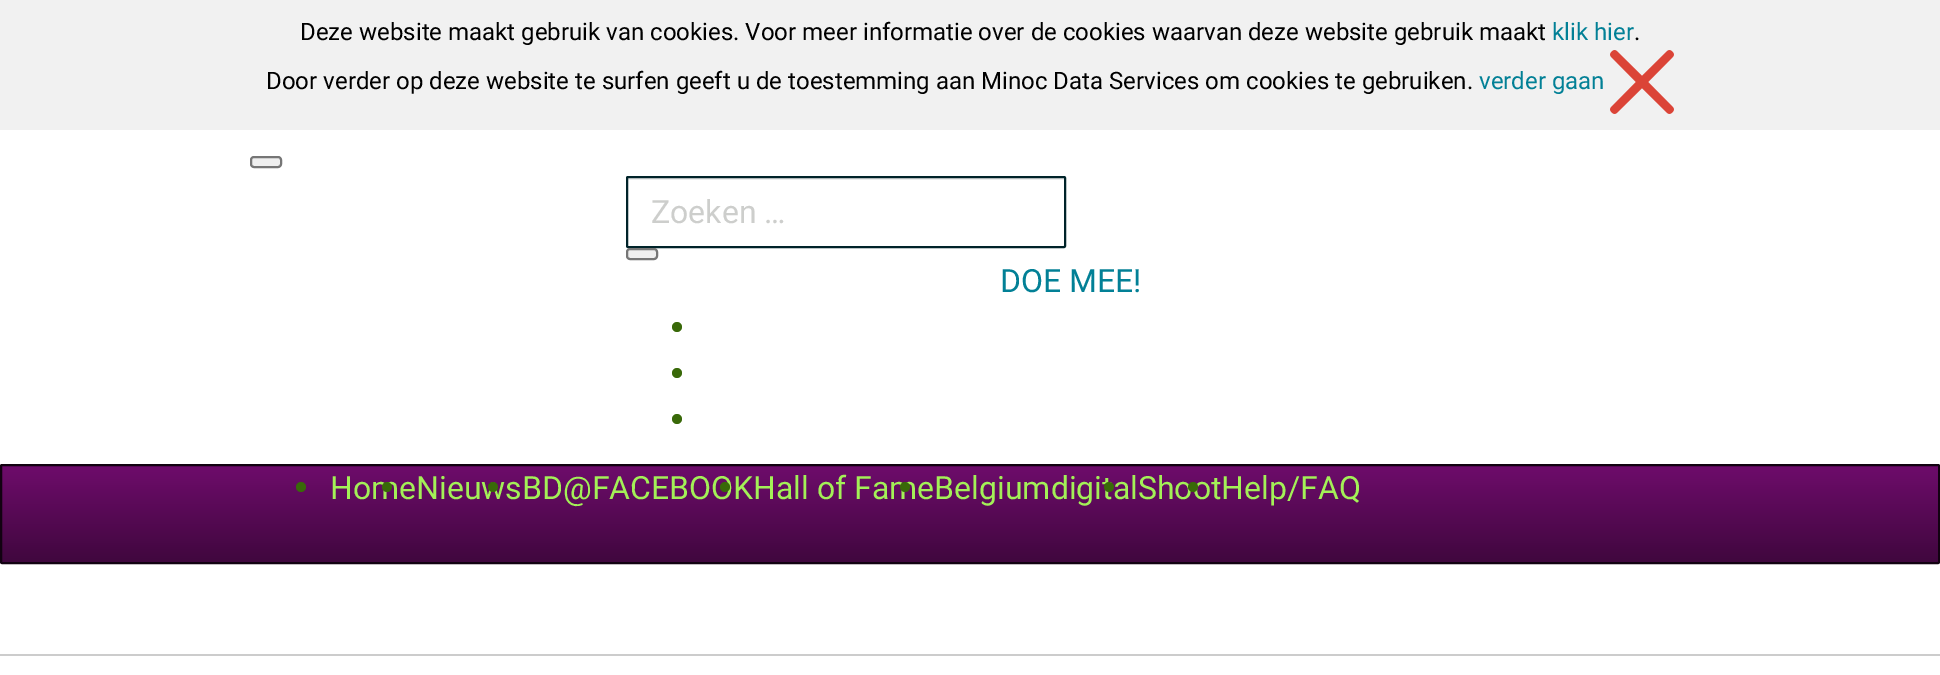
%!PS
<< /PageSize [1940 675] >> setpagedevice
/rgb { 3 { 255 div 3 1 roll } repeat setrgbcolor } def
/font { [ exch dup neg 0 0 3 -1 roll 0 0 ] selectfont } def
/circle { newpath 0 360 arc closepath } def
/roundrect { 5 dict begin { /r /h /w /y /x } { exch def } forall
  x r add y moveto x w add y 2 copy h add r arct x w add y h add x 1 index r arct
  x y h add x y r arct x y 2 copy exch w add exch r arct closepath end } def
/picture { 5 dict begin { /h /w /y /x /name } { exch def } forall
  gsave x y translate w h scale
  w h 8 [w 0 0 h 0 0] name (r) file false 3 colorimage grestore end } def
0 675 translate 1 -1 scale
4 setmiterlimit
255 255 255 rgb
0 0 1940 675 rectfill
241 241 241 rgb
0 0 1940 130 rectfill
(img/1.rgb) 1610 50 64 64 picture
239 239 239 rgb
251 157 30 10 3 roundrect gsave fill grestore
118 118 118 rgb
2 setlinewidth
stroke
236 236 236 rgb
628 178 436 2 rectfill
0 35 41 rgb
627 177 438 70 1 roundrect stroke
239 239 239 rgb
627 249 30 10 3 roundrect gsave fill grestore
118 118 118 rgb
stroke
57 105 9 rgb
677 327 5 circle fill
677 373 5 circle fill
677 419 5 circle fill
gsave 2 466 moveto 1938 466 lineto 1938 562 lineto 2 562 lineto closepath clip newpath
<< /ShadingType 2 /ColorSpace /DeviceRGB /Coords [970 466 970 562] /Extend [true true] /Function << /FunctionType 2 /Domain [0 1] /C0 [0.431 0.047 0.42] /C1 [0.251 0.027 0.243] /N 1 >> >> shfill grestore
18 2 17 rgb
1 465 1938 98 1 roundrect stroke
57 105 9 rgb
301 487 5 circle fill
204 204 204 rgb
0 654 1940 2 rectfill
/Roboto-Regular 24 font
0 0 0 rgb
300 40 moveto (Deze website maakt gebruik van cookies. Voor meer informatie over de cookies waarvan deze website gebruik maakt) show
2 128 150 rgb
1552 40 moveto (klik hier) show
0 0 0 rgb
1634 40 moveto (.) show
266 89 moveto (Door verder op deze website te surfen geeft u de toestemming aan Minoc Data Services om cookies te gebruiken.) show
2 128 150 rgb
1479 89 moveto (verder gaan) show
/Roboto-Regular 32 font
205 206 204 rgb
651 223 moveto (Zoeken …) show
2 128 150 rgb
1000 292 moveto (DOE MEE!) show
163 240 87 rgb
330 499 moveto (HomeNieuwsBD@FACEBOOKHall of FameBelgiumdigitalShootHelp/FAQ) show
57 105 9 rgb
387 487 5 circle fill
493 487 5 circle fill
725 487 5 circle fill
905 487 5 circle fill
1109 487 5 circle fill
1193 487 5 circle fill
showpage
